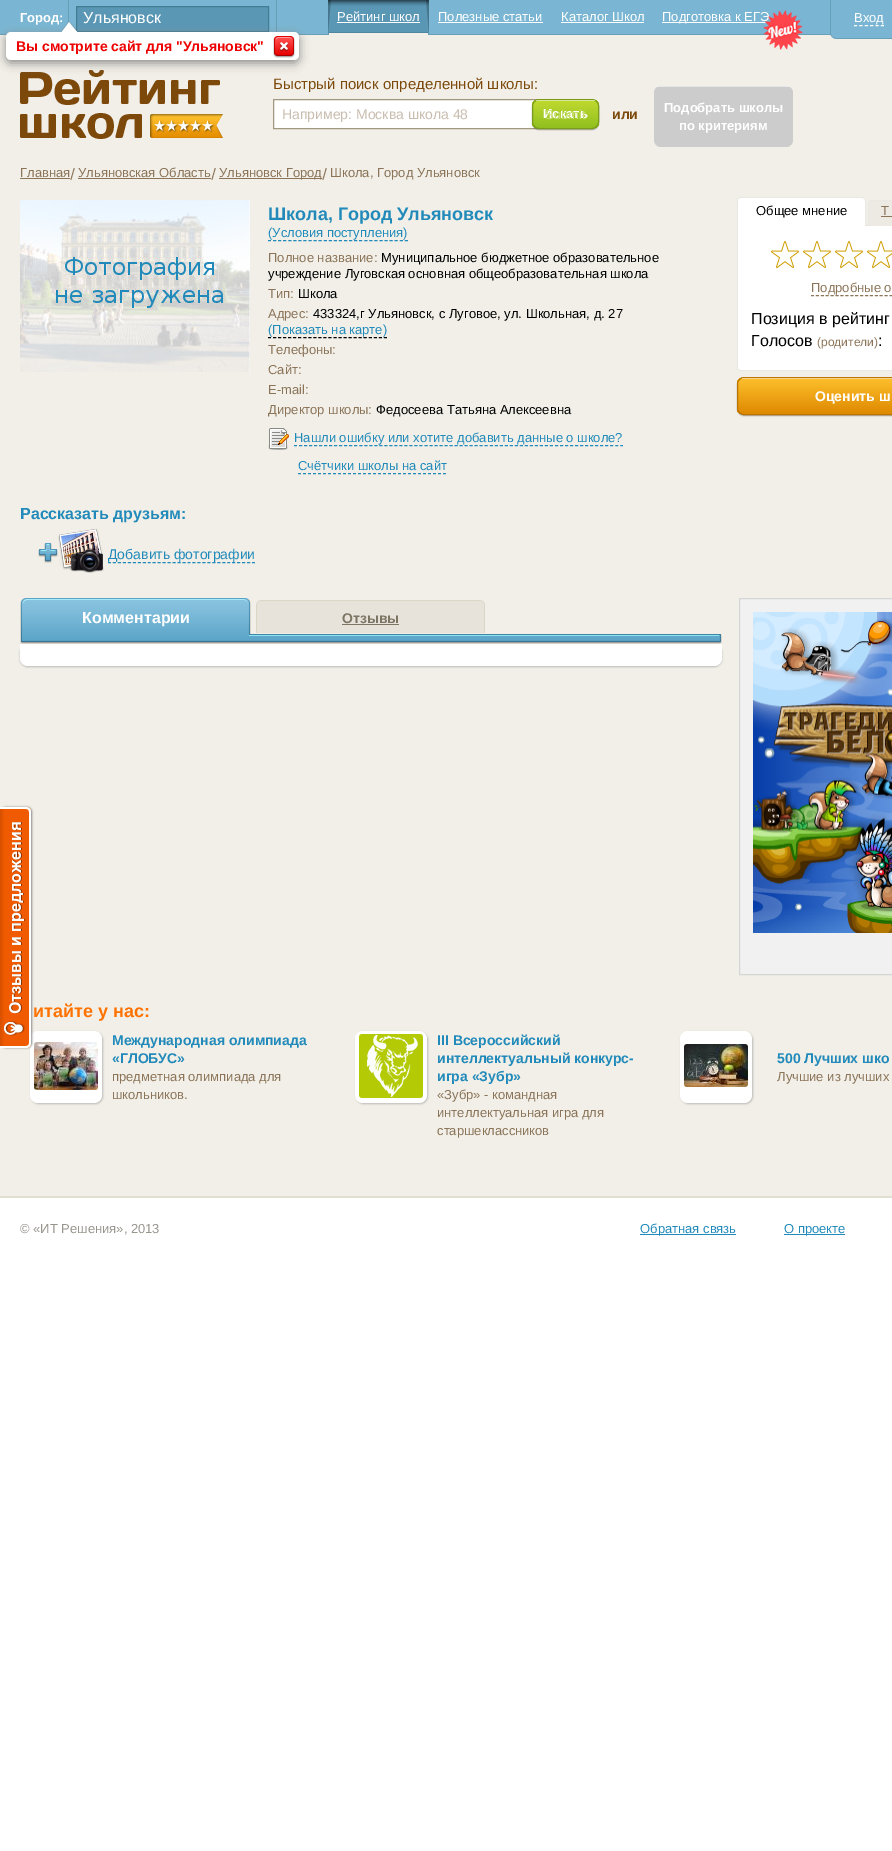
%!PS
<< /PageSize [892 1851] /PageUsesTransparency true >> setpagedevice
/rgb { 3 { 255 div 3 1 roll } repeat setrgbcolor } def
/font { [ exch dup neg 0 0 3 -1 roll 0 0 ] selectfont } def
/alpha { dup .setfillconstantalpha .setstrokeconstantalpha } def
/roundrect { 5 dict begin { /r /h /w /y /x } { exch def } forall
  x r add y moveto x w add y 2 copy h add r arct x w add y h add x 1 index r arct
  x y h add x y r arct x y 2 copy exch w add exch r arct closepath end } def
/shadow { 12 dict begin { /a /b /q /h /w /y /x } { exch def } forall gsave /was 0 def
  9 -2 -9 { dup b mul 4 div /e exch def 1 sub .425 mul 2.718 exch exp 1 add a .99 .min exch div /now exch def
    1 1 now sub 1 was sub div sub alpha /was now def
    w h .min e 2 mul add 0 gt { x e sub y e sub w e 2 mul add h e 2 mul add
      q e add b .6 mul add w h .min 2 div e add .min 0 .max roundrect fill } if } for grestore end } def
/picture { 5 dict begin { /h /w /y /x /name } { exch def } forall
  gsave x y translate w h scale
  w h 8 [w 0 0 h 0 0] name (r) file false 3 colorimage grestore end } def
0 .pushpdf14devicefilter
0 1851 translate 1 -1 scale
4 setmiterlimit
255 255 255 rgb
0 0 892 1851 rectfill
[
  [0 35 892 1161 241 239 232]
  [0 0 831 34 122 182 211]
  [0 34 831 1 103 159 182]
] { aload pop rgb rectfill } forall
(img/1.rgb) 68 0 209 32 picture
90 151 181 rgb
76.5 6.5 moveto 268.5 6.5 lineto 268.5 31.5 lineto 76.5 31.5 lineto closepath gsave fill grestore
66 124 147 rgb
stroke
(img/9.rgb) 20 70 203 69 picture
136 136 136 rgb
6 35 293 28 5 5 1 shadow
255 255 255 rgb
6 32 293 28 5 roundrect fill
(img/3.rgb) 273 36 22 22 picture
241 239 232 rgb
328 33 101 2 rectfill
(img/4.rgb) 331 0 95 33 picture
(img/5.rgb) 328 0 3 35 picture
254 254 254 rgb
337 22 83 1 rectfill
(img/6.rgb) 426 0 3 35 picture
[
  [438 22 105 1 254 254 254]
  [561 22 83 1 254 254 254]
  [662 22 107 1 254 254 254]
] { aload pop rgb rectfill } forall
(img/8.rgb) 830 0 62 39 picture
255 255 255 rgb
[3 2.4] 0 setdash
854 25.5 moveto 884 25.5 lineto stroke
274 100 262 28 rectfill
162 151 127 rgb
[] 0 setdash
273.5 99.5 264 29 rectstroke
0 0 0 rgb
532 100 67 30 7 0.5 0.3 shadow
gsave
532 99 67 30 7 roundrect clip newpath
gsave 532 100 moveto 599 100 lineto 599 128 lineto 532 128 lineto closepath clip newpath
<< /ShadingType 2 /ColorSpace /DeviceRGB /Coords [566 100 566 128] /Extend [true true] /Function << /FunctionType 2 /Domain [0 1] /C0 [0.753 0.855 0.188] /C1 [0.569 0.749 0.122] /N 1 >> >> shfill grestore
grestore
121 156 27 rgb
532.5 99.5 66 29 6.5 roundrect stroke
0.5 alpha
255 255 255 rgb
536 100 59 1 rectfill
1 alpha
204 204 204 rgb
654 86 139 61 7 roundrect fill
0.5 alpha
255 255 255 rgb
657 86 133 1 rectfill
1 alpha
139 116 88 rgb
20 178 50 1 rectfill
(img/10.rgb) 70 168 5 12 picture
78 178 133 1 rectfill
(img/10.rgb) 211 168 5 12 picture
219 178 103 1 rectfill
(img/10.rgb) 322 168 5 12 picture
(img/11.rgb) 20 200 230 172 picture
34 138 186 rgb
[3 2.07] 0 setdash
268 240.5 moveto 408 240.5 lineto stroke
0 0 0 rgb
[3 2.04] 0 setdash
268 337.5 moveto 387 337.5 lineto stroke
(img/12.rgb) 268 428 21 22 picture
34 138 186 rgb
[3 2.02] 0 setdash
294 445.5 moveto 623 445.5 lineto stroke
[3 2] 0 setdash
298 473.5 moveto 446 473.5 lineto stroke
227 225 218 rgb
866 225 2 1 rectfill
255 255 255 rgb
741 197 moveto 862 197 lineto 864 197 866 199 866 201 curveto 866 226 lineto 737 226 lineto 737 201 lineto 737 199 739 197 741 197 curveto closepath fill
233 232 226 rgb
741 197 moveto 862 197 lineto 864 197 866 199 866 201 curveto 866 226 lineto 737 226 lineto 737 201 lineto 737 199 739 197 741 197 curveto closepath 741 198 moveto 862 198 lineto 864 198 865 199 865 201 curveto 865 226 lineto 738 226 lineto 738 201 lineto 738 199 739 198 741 198 curveto closepath eofill
236 234 227 rgb
872 200 moveto 892 200 lineto 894 200 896 202 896 204 curveto 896 226 lineto 868 226 lineto 868 204 lineto 868 202 870 200 872 200 curveto closepath fill
233 232 226 rgb
872 200 moveto 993 200 lineto 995 200 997 202 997 204 curveto 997 226 lineto 868 226 lineto 868 204 lineto 868 202 870 200 872 200 curveto closepath 872 201 moveto 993 201 lineto 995 201 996 202 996 204 curveto 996 226 lineto 869 226 lineto 869 204 lineto 869 202 870 201 872 201 curveto closepath eofill
139 116 88 rgb
881 216 11 1 rectfill
255 255 255 rgb
737 226 moveto 892 226 lineto 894 226 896 228 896 230 curveto 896 367 lineto 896 369 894 371 892 371 curveto 741 371 lineto 739 371 737 369 737 367 curveto closepath fill
233 232 226 rgb
737 226 moveto 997 226 lineto 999 226 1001 228 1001 230 curveto 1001 367 lineto 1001 369 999 371 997 371 curveto 741 371 lineto 739 371 737 369 737 367 curveto closepath 738 226 moveto 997 226 lineto 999 226 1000 228 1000 230 curveto 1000 367 lineto 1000 369 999 370 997 370 curveto 741 370 lineto 739 370 738 369 738 367 curveto closepath eofill
(img/13.rgb) 771 241 121 27 picture
139 116 88 rgb
[3 1.91] 0 setdash
811 295.5 moveto 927 295.5 lineto stroke
0 0 0 rgb
737 378 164 38 7 0.5 0.3 shadow
gsave
737 377 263 38 7 roundrect clip newpath
gsave 737 378 moveto 892 378 lineto 892 414 lineto 737 414 lineto closepath clip newpath
<< /ShadingType 2 /ColorSpace /DeviceRGB /Coords [869 378 869 414] /Extend [true true] /Function << /FunctionType 2 /Domain [0 1] /C0 [0.996 0.753 0.173] /C1 [0.871 0.537 0.004] /N 1 >> >> shfill grestore
grestore
187 116 0 rgb
[] 0 setdash
737.5 377.5 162 37 6.5 roundrect stroke
0.5 alpha
255 255 255 rgb
742 378 150 1 rectfill
1 alpha
(img/14.rgb) 38 529 66 44 picture
34 138 186 rgb
[3 1.97] 0 setdash
108 562.5 moveto 255 562.5 lineto stroke
(img/15.rgb) 20 634 702 10 picture
(img/16.rgb) 20 598 231 38 picture
(img/17.rgb) 256 600 229 33 picture
124 117 100 rgb
342 624 57 1 rectfill
186 185 181 rgb
20 645 702 22 8 1 1 shadow
255 255 255 rgb
20 644 moveto 722 644 lineto 722 658 lineto 722 662.5 718.5 666 714 666 curveto 28 666 lineto 23.5 666 20 662.5 20 658 curveto closepath fill
241 241 241 rgb
739.5 598.5 moveto 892.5 598.5 lineto 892.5 974.5 lineto 739.5 974.5 lineto closepath gsave fill grestore
213 213 213 rgb
[] 0 setdash
stroke
(img/18.rgb) 753 612 139 321 picture
186 185 181 rgb
31 1032 72 72 8 1 1 shadow
255 255 255 rgb
30 1031 72 72 8 roundrect fill
(img/19.rgb) 34 1042 64 48 picture
186 185 181 rgb
356 1032 72 72 8 1 1 shadow
255 255 255 rgb
355 1031 72 72 8 roundrect fill
(img/20.rgb) 359 1034 64 64 picture
186 185 181 rgb
681 1032 72 72 8 1 1 shadow
255 255 255 rgb
680 1031 72 72 8 roundrect fill
(img/21.rgb) 684 1044 64 43 picture
[
  [0 1196 892 2 225 223 209]
  [640 1234 96 1 34 138 186]
  [784 1234 61 1 34 138 186]
] { aload pop rgb rectfill } forall
136 136 136 rgb
1 807 31 241 5 1 1 shadow
240 90 0 rgb
0 807 moveto 26 807 lineto 29 807 31 809 31 812 curveto 31 1043 lineto 31 1046 29 1048 26 1048 curveto 0 1048 lineto closepath fill
(img/22.rgb) 0 809 4 237 picture
255 255 255 rgb
0 807 moveto 26 807 lineto 29 807 31 809 31 812 curveto 31 1043 lineto 31 1046 29 1048 26 1048 curveto 0 1048 lineto closepath 0 809 moveto 26 809 lineto 28 809 29 810 29 812 curveto 29 1043 lineto 29 1045 28 1046 26 1046 curveto 0 1046 lineto closepath eofill
(img/23.rgb) 4 822 21 214 picture
/LiberationSans-Bold 13 font
20 22 moveto (Город:) show
/LiberationSans-Regular 16 font
83 23 moveto (Ульяновск) show
(img/2.rgb) 62 22 15 10 picture
/LiberationSans-Bold 14 font
239 0 0 rgb
16 51 moveto (Вы смотрите сайт для "Ульяновск") show
/LiberationSans-Regular 13 font
255 255 255 rgb
[
  [(Рейтинг школ) 337 21]
  [(Полезные статьи) 438 21]
  [(Каталог Школ) 561 21]
  [(Подготовка к ЕГЭ) 662 21]
] { aload pop moveto show } forall
(img/7.rgb) 763 10 40 40 picture
854 22 moveto (Вход) show
/LiberationSans-Regular 15 font
124 73 11 rgb
273 89 moveto (Быстрый поиск определенной школы:) show
/LiberationSans-Regular 14 font
201 189 175 rgb
282 119 moveto (Например: Москва школа 48) show
/LiberationSans-Bold 13 font
255 255 255 rgb
543 118 moveto (Искать) show
/LiberationSans-Regular 13 font
197 221 114 rgb
545 119 moveto (Submit) show
/LiberationSans-Bold 14 font
124 73 11 rgb
612 119 moveto (или) show
/LiberationSans-Bold 13 font
255 255 255 rgb
664 112 moveto (Подобрать школы) show
679 130 moveto (по критериям) show
/LiberationSans-Regular 13 font
139 116 88 rgb
[
  [(Главная) 20 177]
  [(Ульяновская Область) 78 177]
  [(Ульяновск Город) 219 177]
  [(Школа, Город Ульяновск) 330 177]
] { aload pop moveto show } forall
/LiberationSans-Bold 18 font
34 138 186 rgb
268 220 moveto (Школа, Город Ульяновск) show
/LiberationSans-Regular 13 font
268 237 moveto (\(Условия поступления\)) show
139 116 88 rgb
268 262 moveto (Полное название:) show
0 0 0 rgb
381 262 moveto (Муниципальное бюджетное образовательное) show
268 278 moveto (учреждение Луговская основная общеобразовательная школа) show
139 116 88 rgb
268 298 moveto (Тип:) show
0 0 0 rgb
298 298 moveto (Школа) show
139 116 88 rgb
268 318 moveto (Адрес:) show
0 0 0 rgb
313 318 moveto (433324,г Ульяновск, с Луговое, ул. Школьная, д. 27) show
34 138 186 rgb
268 334 moveto (\(Показать на карте\)) show
139 116 88 rgb
[
  [(Телефоны:) 268 354]
  [(Сайт:) 268 374]
  [(E-mail:) 268 394]
  [(Директор школы:) 268 414]
] { aload pop moveto show } forall
0 0 0 rgb
376 414 moveto (Федосеева Татьяна Алексеевна) show
34 138 186 rgb
294 442 moveto (Нашли ошибку или хотите добавить данные о школе?) show
298 470 moveto (Счётчики школы на сайт) show
/LiberationSans-Bold 16 font
20 519 moveto (Рассказать друзьям:) show
/LiberationSans-Regular 13 font
0 0 0 rgb
756 215 moveto (Общее мнение) show
139 116 88 rgb
881 215 moveto (Т) show
811 292 moveto (Подробные о) show
/LiberationSans-Regular 16 font
0 0 0 rgb
751 324 moveto (Позиция в рейтинг) show
751 346 moveto (Голосов) show
/LiberationSans-Regular 12 font
139 116 88 rgb
817 346 moveto (\(родители\)) show
/LiberationSans-Regular 16 font
0 0 0 rgb
878 346 moveto (:) show
/LiberationSans-Bold 14 font
255 255 255 rgb
815 401 moveto (Оценить ш) show
/LiberationSans-Regular 14 font
34 138 186 rgb
108 559 moveto (Добавить фотографии) show
/LiberationSans-Bold 16 font
255 255 255 rgb
82 623 moveto (Комментарии) show
/LiberationSans-Bold 14 font
124 117 100 rgb
342 623 moveto (Отзывы) show
/LiberationSans-Bold 18 font
255 114 0 rgb
33 1017 moveto (итайте у нас:) show
/LiberationSans-Bold 14 font
34 138 186 rgb
112 1045 moveto (Международная олимпиада) show
112 1063 moveto («ГЛОБУС») show
/LiberationSans-Regular 13 font
139 116 88 rgb
112 1081 moveto (предметная олимпиада для) show
112 1099 moveto (школьников.) show
/LiberationSans-Bold 14 font
34 138 186 rgb
[
  [(III Всероссийский) 437 1045]
  [(интеллектуальный конкурс-) 437 1063]
  [(игра «Зубр») 437 1081]
] { aload pop moveto show } forall
/LiberationSans-Regular 13 font
139 116 88 rgb
[
  [(«Зубр» - командная) 437 1099]
  [(интеллектуальная игра для) 437 1117]
  [(старшеклассников) 437 1135]
] { aload pop moveto show } forall
/LiberationSans-Bold 14 font
34 138 186 rgb
777 1063 moveto (500 Лучших шко) show
/LiberationSans-Regular 13 font
139 116 88 rgb
777 1081 moveto (Лучшие из лучших) show
152 149 141 rgb
20 1233 moveto (© «ИТ Решения», 2013) show
34 138 186 rgb
640 1233 moveto (Обратная связь) show
784 1233 moveto (О проекте) show
.poppdf14devicefilter showpage
